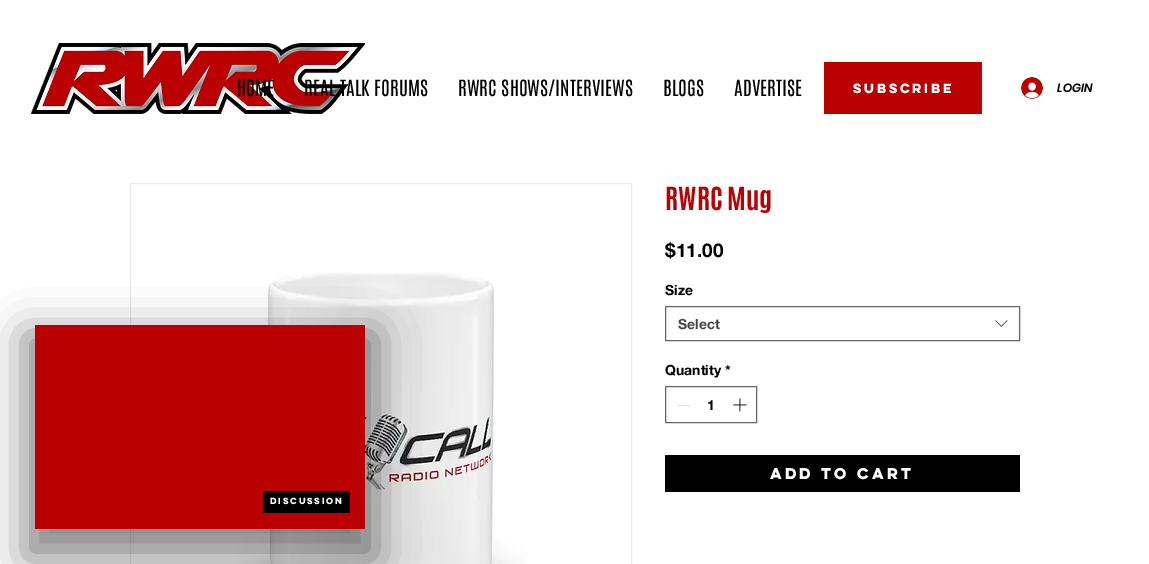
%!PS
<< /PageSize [1149 564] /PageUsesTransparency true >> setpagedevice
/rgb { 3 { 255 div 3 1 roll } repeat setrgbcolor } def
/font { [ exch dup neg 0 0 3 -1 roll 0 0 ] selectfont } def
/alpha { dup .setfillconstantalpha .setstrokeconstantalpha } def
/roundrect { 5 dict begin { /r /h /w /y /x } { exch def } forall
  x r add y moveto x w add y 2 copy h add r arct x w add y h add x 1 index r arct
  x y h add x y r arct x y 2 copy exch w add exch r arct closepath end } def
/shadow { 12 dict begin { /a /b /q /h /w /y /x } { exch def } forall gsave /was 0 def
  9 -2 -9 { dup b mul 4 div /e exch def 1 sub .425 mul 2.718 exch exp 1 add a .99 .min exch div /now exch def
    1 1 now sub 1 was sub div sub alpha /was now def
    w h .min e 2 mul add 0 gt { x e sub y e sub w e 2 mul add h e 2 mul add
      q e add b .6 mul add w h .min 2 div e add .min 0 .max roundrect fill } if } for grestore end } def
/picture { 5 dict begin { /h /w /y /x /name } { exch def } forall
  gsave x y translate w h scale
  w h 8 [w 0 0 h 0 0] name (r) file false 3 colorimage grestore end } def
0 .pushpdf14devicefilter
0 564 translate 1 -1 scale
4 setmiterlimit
255 255 255 rgb
0 0 1149 564 rectfill
(img/1.rgb) 31 43 334 71 picture
186 0 1 rgb
824 62 158 52 rectfill
(img/2.rgb) 1021 77 22 22 picture
235 235 235 rgb
130.5 183.5 501 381 rectstroke
(img/3.rgb) 236 272 289 292 picture
102 102 102 rgb
665.5 306.5 354 34 rectstroke
(img/4.rgb) 995 320 13 7 picture
665.5 386.5 91 36 rectstroke
227 227 227 rgb
677 405 13 1 rectfill
(img/5.rgb) 733 398 14 14 picture
0 0 0 rgb
665 455 355 37 rectfill
24 333 352 226 0 20.5 0.46 shadow
186 0 1 rgb
35 325 330 204 rectfill
0 0 0 rgb
263 491 87 22 rectfill
/Antonio-Regular 19 font
[
  [(HOME) 237 96]
  [(REAL TALK FORUMS) 304 96]
  [(RWRC SHOWS/INTERVIEWS) 458 96]
  [(BLOGS) 663 96]
  [(ADVERTISE) 734 96]
] { aload pop moveto show } forall
/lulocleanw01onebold-Bold 12 font
255 255 255 rgb
853 93 moveto (SUBSCRIBE) show
/Poppins-SemiBoldItalic 12 font
0 0 0 rgb
1057 92 moveto (LOGIN) show
/Antonio-Bold 27 font
186 0 1 rgb
665 210 moveto (RWRC Mug) show
/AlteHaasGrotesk-Bold 19 font
0 0 0 rgb
665 257 moveto ($11.00) show
/AlteHaasGrotesk-Bold 14 font
665 295 moveto (Size) show
68 68 68 rgb
678 329 moveto (Select) show
0 0 0 rgb
665 375 moveto (Quantity *) show
707 410 moveto (1) show
/lulocleanw01onebold-Bold 14 font
255 255 255 rgb
770 479 moveto (ADD TO CART) show
/lulocleanw01onebold-Bold 8 font
270 504 moveto (DISCUSSION) show
.poppdf14devicefilter showpage
